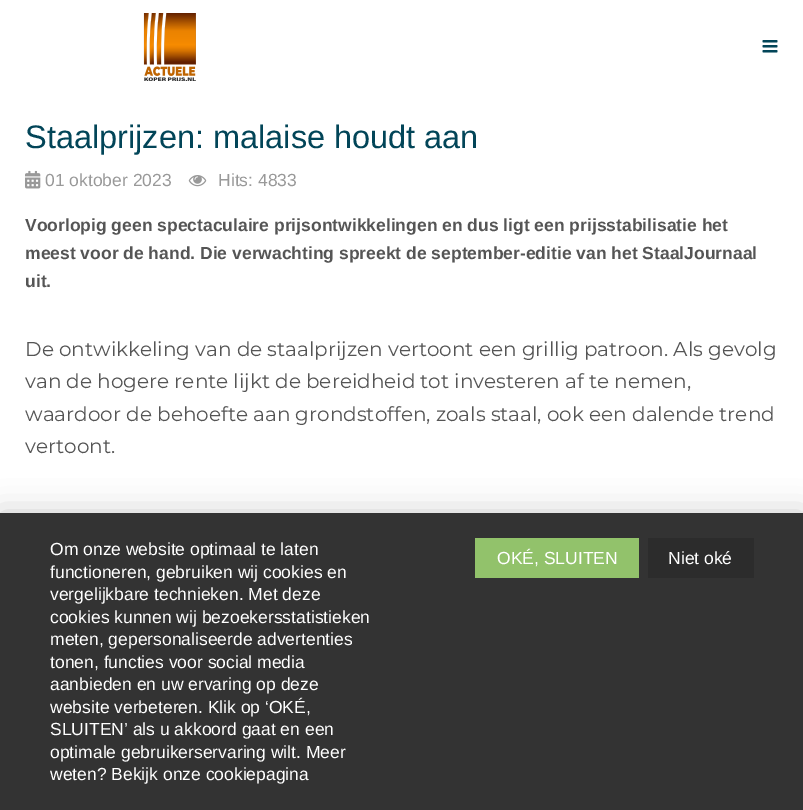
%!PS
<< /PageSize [803 810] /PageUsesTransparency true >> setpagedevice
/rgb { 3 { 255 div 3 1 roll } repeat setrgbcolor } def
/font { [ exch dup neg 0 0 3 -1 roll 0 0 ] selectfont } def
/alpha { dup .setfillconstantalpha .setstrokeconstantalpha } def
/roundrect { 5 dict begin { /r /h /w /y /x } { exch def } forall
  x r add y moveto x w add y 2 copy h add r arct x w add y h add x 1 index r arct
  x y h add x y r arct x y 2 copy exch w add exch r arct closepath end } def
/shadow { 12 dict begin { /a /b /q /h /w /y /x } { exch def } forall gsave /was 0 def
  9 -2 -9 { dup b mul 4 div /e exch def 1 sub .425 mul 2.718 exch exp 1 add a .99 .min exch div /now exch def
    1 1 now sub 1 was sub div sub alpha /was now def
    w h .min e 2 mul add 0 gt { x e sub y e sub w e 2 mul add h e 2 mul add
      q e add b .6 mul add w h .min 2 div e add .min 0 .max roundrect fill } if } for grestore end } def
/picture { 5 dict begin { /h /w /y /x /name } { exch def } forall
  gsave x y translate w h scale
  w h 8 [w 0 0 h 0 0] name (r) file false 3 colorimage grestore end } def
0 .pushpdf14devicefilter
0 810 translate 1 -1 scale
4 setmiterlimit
255 255 255 rgb
0 0 803 810 rectfill
(img/1.rgb) 143 13 53 68 picture
(img/2.rgb) 762 40 16 13 picture
(img/3.rgb) 25 170 16 19 picture
(img/4.rgb) 188 175 19 12 picture
0 0 0 rgb
0 513 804 297 0 15.5 0.2 shadow
[
  [0 513 803 297 51 51 51]
  [475 538 164 40 146 194 107]
  [648 538 106 40 44 44 44]
] { aload pop rgb rectfill } forall
/LiberationSans-Regular 32.5 font
2 69 88 rgb
25 148 moveto (Staalprijzen: malaise houdt aan) show
/LiberationSans-Regular 17.5 font
153 153 153 rgb
45 186 moveto (01 oktober 2023) show
218 186 moveto (Hits: 4833) show
/LiberationSans-Bold 17.5 font
85 85 85 rgb
[
  [(Voorlopig geen spectaculaire prijsontwikkelingen en dus ligt een prijsstabilisatie het) 25 231]
  [(meest voor de hand. Die verwachting spreekt de september-editie van het StaalJournaal) 25 259]
  [(uit.) 25 287]
] { aload pop moveto show } forall
/Montserrat-Regular 20 font
[
  [(De ontwikkeling van de staalprijzen vertoont een grillig patroon. Als gevolg) 25 356]
  [(van de hogere rente lijkt de bereidheid tot investeren af te nemen,) 25 388]
  [(waardoor de behoefte aan grondstoffen, zoals staal, ook een dalende trend) 25 421]
  [(vertoont.) 25 453]
] { aload pop moveto show } forall
/LiberationSans-Regular 17.5 font
255 255 255 rgb
[
  [(Om onze website optimaal te laten) 50 555]
  [(functioneren, gebruiken wij cookies en) 50 578]
  [(vergelijkbare technieken. Met deze) 50 600]
  [(cookies kunnen wij bezoekersstatistieken) 50 623]
  [(meten, gepersonaliseerde advertenties) 50 645]
  [(tonen, functies voor social media) 50 668]
  [(aanbieden en uw ervaring op deze) 50 690]
  [(website verbeteren. Klik op ‘OKÉ,) 50 713]
  [(SLUITEN’ als u akkoord gaat en een) 50 735]
  [(optimale gebruikerservaring wilt. Meer) 50 758]
  [(weten? Bekijk onze cookiepagina) 50 780]
  [(OKÉ, SLUITEN) 497 564]
  [(Niet oké) 668 564]
] { aload pop moveto show } forall
.poppdf14devicefilter showpage
